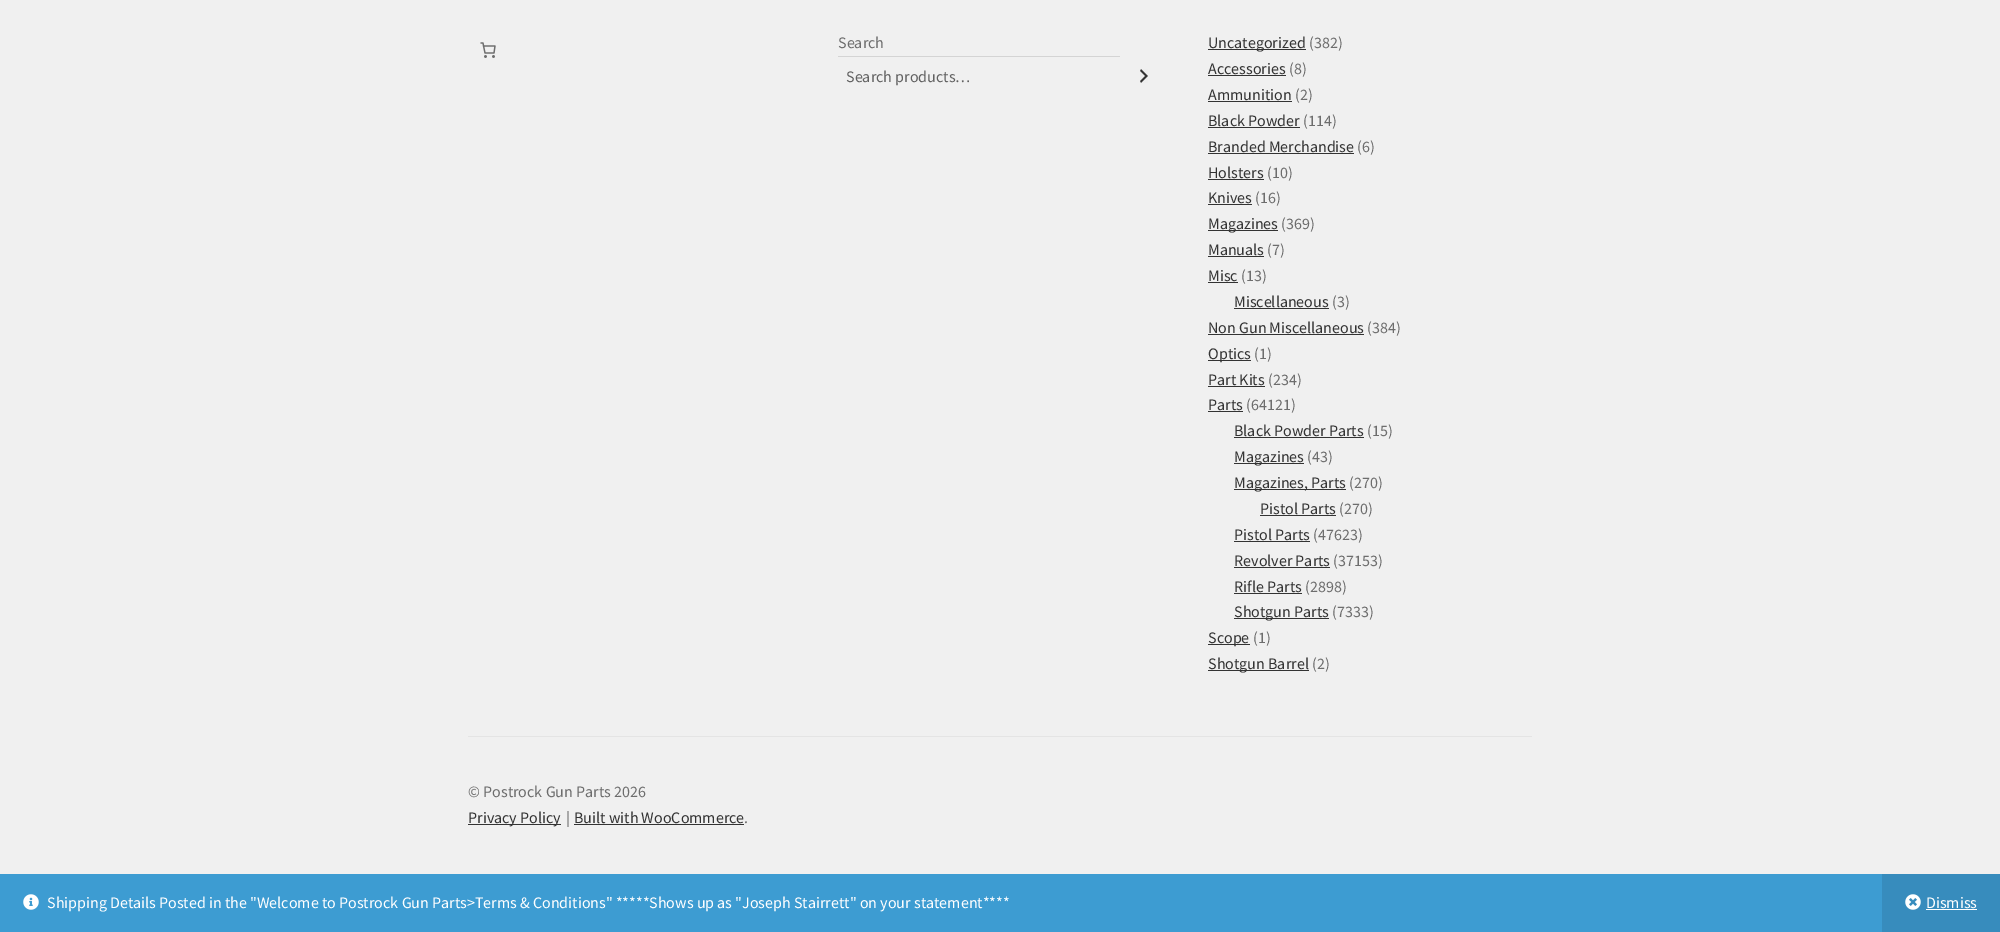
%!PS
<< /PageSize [2000 932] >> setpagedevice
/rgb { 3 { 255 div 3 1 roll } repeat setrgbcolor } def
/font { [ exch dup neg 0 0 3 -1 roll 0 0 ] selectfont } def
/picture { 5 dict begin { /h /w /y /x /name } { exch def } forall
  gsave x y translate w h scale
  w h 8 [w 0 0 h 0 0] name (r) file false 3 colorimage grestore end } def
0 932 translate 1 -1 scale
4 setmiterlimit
240 240 240 rgb
0 0 2000 932 rectfill
228 228 228 rgb
468 736 1064 1 rectfill
(img/1.rgb) 480 42 16 16 picture
212 212 212 rgb
838 56 282 1 rectfill
(img/2.rgb) 1140 69 8 14 picture
[
  [1208 49 98 1 51 51 51]
  [1208 75 78 1 51 51 51]
  [1208 101 84 1 51 51 51]
  [1208 127 92 1 51 51 51]
  [1208 153 146 1 51 51 51]
  [1208 179 56 1 51 51 51]
  [1208 204 44 1 51 51 51]
  [1208 230 70 1 51 51 51]
  [1208 256 56 1 51 51 51]
  [1208 282 30 1 51 51 51]
  [1234 308 95 1 51 51 51]
  [1208 334 156 1 51 51 51]
  [1208 360 43 1 51 51 51]
  [1208 386 57 1 51 51 51]
  [1208 411 35 1 51 51 51]
  [1234 437 130 1 51 51 51]
  [1234 463 70 1 51 51 51]
  [1234 489 112 1 51 51 51]
  [1260 515 76 1 51 51 51]
  [1234 541 76 1 51 51 51]
  [1234 567 96 1 51 51 51]
  [1234 593 68 1 51 51 51]
  [1234 618 95 1 51 51 51]
  [1208 644 42 1 51 51 51]
  [1208 670 101 1 51 51 51]
  [468 824 93 1 51 51 51]
  [574 824 170 1 51 51 51]
  [0 874 1882 58 61 156 210]
] { aload pop rgb rectfill } forall
(img/3.rgb) 23 894 16 16 picture
55 140 189 rgb
1882 874 118 58 rectfill
(img/4.rgb) 1905 894 16 16 picture
255 255 255 rgb
1926 909 51 1 rectfill
/SourceSansPro-Regular 16 font
109 109 109 rgb
838 48 moveto (Search) show
97 97 97 rgb
846 82 moveto (Search products…) show
51 51 51 rgb
1208 48 moveto (Uncategorized) show
109 109 109 rgb
1309 48 moveto (\(382\)) show
51 51 51 rgb
1208 74 moveto (Accessories) show
109 109 109 rgb
1289 74 moveto (\(8\)) show
51 51 51 rgb
1208 100 moveto (Ammunition) show
109 109 109 rgb
1295 100 moveto (\(2\)) show
51 51 51 rgb
1208 126 moveto (Black Powder) show
109 109 109 rgb
1303 126 moveto (\(114\)) show
51 51 51 rgb
1208 152 moveto (Branded Merchandise) show
109 109 109 rgb
1357 152 moveto (\(6\)) show
51 51 51 rgb
1208 178 moveto (Holsters) show
109 109 109 rgb
1267 178 moveto (\(10\)) show
51 51 51 rgb
1208 203 moveto (Knives) show
109 109 109 rgb
1255 203 moveto (\(16\)) show
51 51 51 rgb
1208 229 moveto (Magazines) show
109 109 109 rgb
1281 229 moveto (\(369\)) show
51 51 51 rgb
1208 255 moveto (Manuals) show
109 109 109 rgb
1267 255 moveto (\(7\)) show
51 51 51 rgb
1208 281 moveto (Misc) show
109 109 109 rgb
1241 281 moveto (\(13\)) show
51 51 51 rgb
1234 307 moveto (Miscellaneous) show
109 109 109 rgb
1332 307 moveto (\(3\)) show
51 51 51 rgb
1208 333 moveto (Non Gun Miscellaneous) show
109 109 109 rgb
1367 333 moveto (\(384\)) show
51 51 51 rgb
1208 359 moveto (Optics) show
109 109 109 rgb
1254 359 moveto (\(1\)) show
51 51 51 rgb
1208 385 moveto (Part Kits) show
109 109 109 rgb
1268 385 moveto (\(234\)) show
51 51 51 rgb
1208 410 moveto (Parts) show
109 109 109 rgb
1246 410 moveto (\(64121\)) show
51 51 51 rgb
1234 436 moveto (Black Powder Parts) show
109 109 109 rgb
1367 436 moveto (\(15\)) show
51 51 51 rgb
1234 462 moveto (Magazines) show
109 109 109 rgb
1307 462 moveto (\(43\)) show
51 51 51 rgb
1234 488 moveto (Magazines, Parts) show
109 109 109 rgb
1349 488 moveto (\(270\)) show
51 51 51 rgb
1260 514 moveto (Pistol Parts) show
109 109 109 rgb
1339 514 moveto (\(270\)) show
51 51 51 rgb
1234 540 moveto (Pistol Parts) show
109 109 109 rgb
1313 540 moveto (\(47623\)) show
51 51 51 rgb
1234 566 moveto (Revolver Parts) show
109 109 109 rgb
1333 566 moveto (\(37153\)) show
51 51 51 rgb
1234 592 moveto (Rifle Parts) show
109 109 109 rgb
1305 592 moveto (\(2898\)) show
51 51 51 rgb
1234 617 moveto (Shotgun Parts) show
109 109 109 rgb
1332 617 moveto (\(7333\)) show
51 51 51 rgb
1208 643 moveto (Scope) show
109 109 109 rgb
1253 643 moveto (\(1\)) show
51 51 51 rgb
1208 669 moveto (Shotgun Barrel) show
109 109 109 rgb
1312 669 moveto (\(2\)) show
468 797 moveto (© Postrock Gun Parts 2026) show
51 51 51 rgb
468 823 moveto (Privacy Policy) show
109 109 109 rgb
566 823 moveto (|) show
51 51 51 rgb
574 823 moveto (Built with WooCommerce) show
109 109 109 rgb
744 823 moveto (.) show
255 255 255 rgb
47 908 moveto (Shipping Details Posted in the "Welcome to Postrock Gun Parts>Terms & Conditions" *****Shows up as "Joseph Stairrett" on your statement****) show
1926 908 moveto (Dismiss) show
showpage
